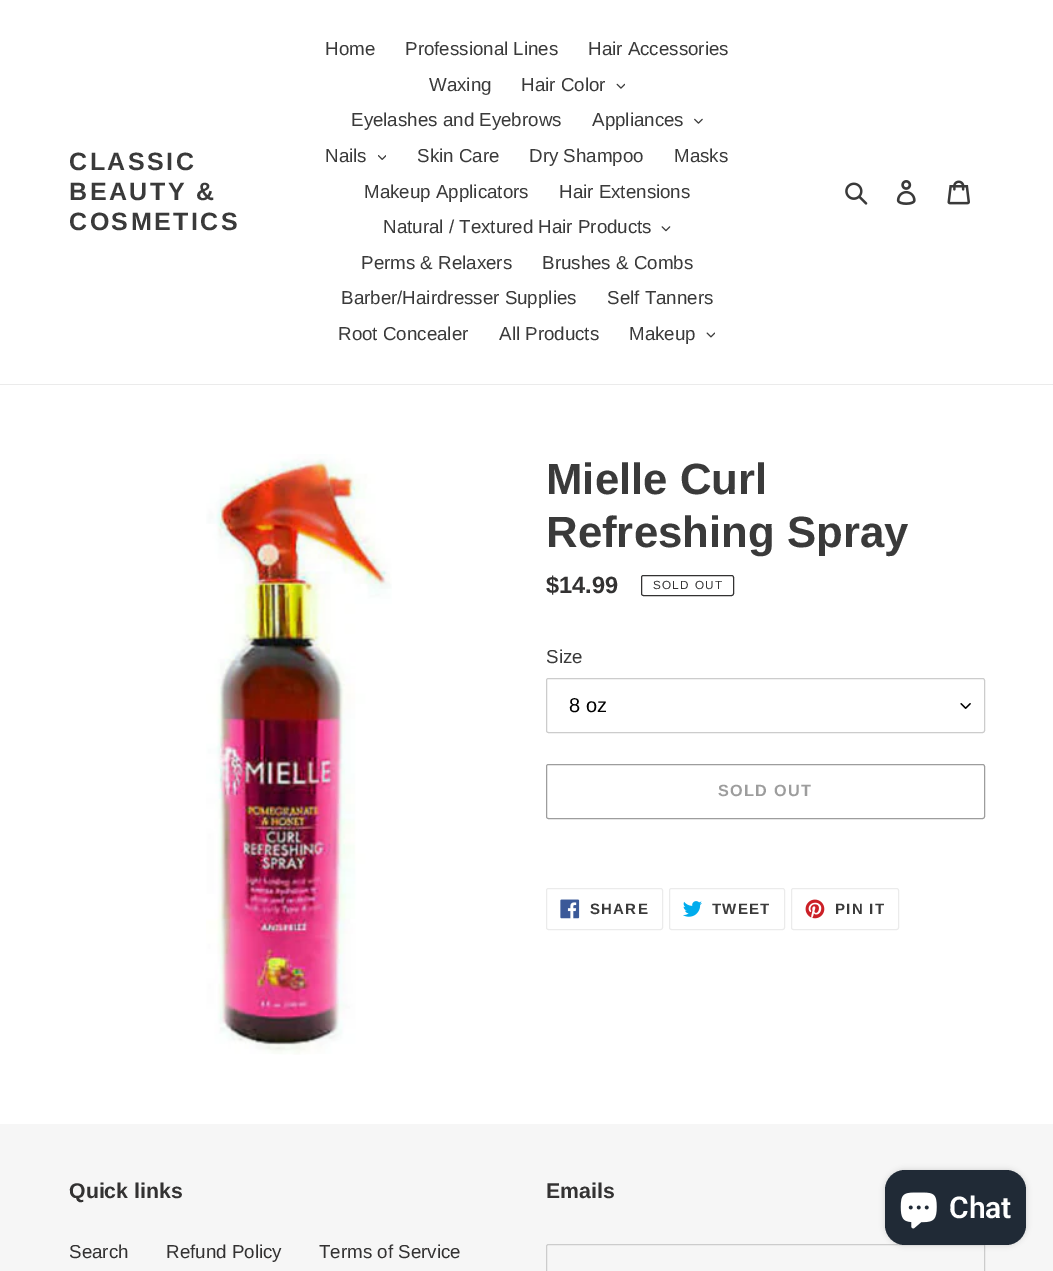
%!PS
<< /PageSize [1053 1271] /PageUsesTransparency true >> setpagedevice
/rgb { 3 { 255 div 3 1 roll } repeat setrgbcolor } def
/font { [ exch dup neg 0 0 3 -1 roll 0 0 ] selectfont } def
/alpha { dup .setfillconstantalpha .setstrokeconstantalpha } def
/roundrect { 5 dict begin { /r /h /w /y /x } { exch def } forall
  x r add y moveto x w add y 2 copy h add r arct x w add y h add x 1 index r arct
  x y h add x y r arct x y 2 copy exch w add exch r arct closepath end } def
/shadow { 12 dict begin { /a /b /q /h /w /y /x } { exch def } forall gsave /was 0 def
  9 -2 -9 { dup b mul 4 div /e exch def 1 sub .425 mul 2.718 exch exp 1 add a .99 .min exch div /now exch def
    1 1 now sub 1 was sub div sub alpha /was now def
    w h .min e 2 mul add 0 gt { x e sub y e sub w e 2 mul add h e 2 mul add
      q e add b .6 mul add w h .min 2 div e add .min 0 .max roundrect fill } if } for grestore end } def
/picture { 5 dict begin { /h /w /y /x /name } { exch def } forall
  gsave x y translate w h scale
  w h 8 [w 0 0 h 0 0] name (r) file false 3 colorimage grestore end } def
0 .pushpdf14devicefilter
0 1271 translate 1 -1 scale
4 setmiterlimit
255 255 255 rgb
0 0 1053 1271 rectfill
235 235 235 rgb
0 384 1053 1 rectfill
(img/1.rgb) 616 83 9 6 picture
(img/2.rgb) 694 118 9 6 picture
(img/3.rgb) 378 155 8 5 picture
(img/4.rgb) 661 226 10 6 picture
(img/5.rgb) 706 332 9 6 picture
(img/6.rgb) 845 182 23 23 picture
(img/7.rgb) 896 180 20 25 picture
(img/8.rgb) 947 180 23 25 picture
(img/9.rgb) 206 454 186 601 picture
51 50 50 rgb
641.5 575.5 92 20 2 roundrect stroke
(img/10.rgb) 960 703 11 6 picture
204 204 204 rgb
546.5 678.5 438 54 2 roundrect stroke
157 157 157 rgb
546.5 764.5 438 54 2 roundrect stroke
235 235 235 rgb
546.5 888.5 116 41 2 roundrect stroke
(img/11.rgb) 560 899 20 20 picture
669.5 888.5 115 41 2 roundrect stroke
(img/12.rgb) 683 901 19 16 picture
791.5 888.5 107 41 2 roundrect stroke
(img/13.rgb) 805 899 20 20 picture
246 246 246 rgb
0 1124 1053 147 rectfill
204 204 204 rgb
548.5 1244.5 moveto 984.5 1244.5 lineto 984.5 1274.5 lineto 548.5 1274.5 lineto 547.5 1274.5 546.5 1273.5 546.5 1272.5 curveto 546.5 1246.5 lineto 546.5 1245.5 547.5 1244.5 548.5 1244.5 curveto closepath stroke
0 0 0 rgb
885 1170 141 75 20 3 0.15 shadow
32 42 54 rgb
885 1170 141 75 20 roundrect fill
(img/14.rgb) 900 1192 37 37 picture
/LiberationSans-Bold 25 font
58 58 58 rgb
69 170 moveto 2.5 0 (CLASSIC) ashow
69 200 moveto 2.5 0 (BEAUTY &) ashow
69 230 moveto 2.5 0 (COSMETICS) ashow
/LiberationSans-Regular 18.75 font
[
  [(Home) 325 55]
  [(Professional Lines) 405 55]
  [(Hair Accessories) 588 55]
  [(Waxing) 429 91]
  [(Hair Color) 521 91]
  [(Eyelashes and Eyebrows) 351 126]
  [(Appliances) 592 126]
  [(Nails) 325 162]
  [(Skin Care) 417 162]
  [(Dry Shampoo) 529 162]
  [(Masks) 674 162]
  [(Makeup Applicators) 364 198]
  [(Hair Extensions) 559 198]
  [(Natural / Textured Hair Products) 383 233]
  [(Perms & Relaxers) 361 269]
  [(Brushes & Combs) 542 269]
  [(Barber/Hairdresser Supplies) 341 304]
  [(Self Tanners) 607 304]
  [(Root Concealer) 338 340]
  [(All Products) 499 340]
  [(Makeup) 629 340]
] { aload pop moveto show } forall
/LiberationSans-Bold 43.75 font
546 494 moveto (Mielle Curl) show
546 547 moveto (Refreshing Spray) show
/LiberationSans-Bold 23.5 font
51 50 50 rgb
546 593 moveto ($14.99) show
/LiberationSans-Regular 11.75 font
653 589 moveto 1.25 0 (SOLD OUT) ashow
/LiberationSans-Regular 18.75 font
58 58 58 rgb
546 663 moveto (Size) show
/LiberationSans-Regular 20 font
0 0 0 rgb
569 712 moveto (8 oz) show
/LiberationSans-Bold 16.25 font
157 157 157 rgb
718 796 moveto 1.25 0 (SOLD OUT) ashow
/LiberationSans-Bold 15 font
58 58 58 rgb
590 914 moveto 1.25 0 (SHARE) ashow
712 914 moveto 1.25 0 (TWEET) ashow
835 914 moveto 1.25 0 (PIN IT) ashow
/LiberationSans-Bold 21.25 font
51 50 50 rgb
69 1198 moveto (Quick links) show
/LiberationSans-Regular 18.75 font
[
  [(Search) 69 1258]
  [(Refund Policy) 166 1258]
  [(Terms of Service) 319 1258]
] { aload pop moveto show } forall
/LiberationSans-Bold 21.25 font
546 1198 moveto (Emails) show
/Roboto-SemiBold 30 font
255 255 255 rgb
949 1218 moveto (Chat) show
.poppdf14devicefilter showpage
